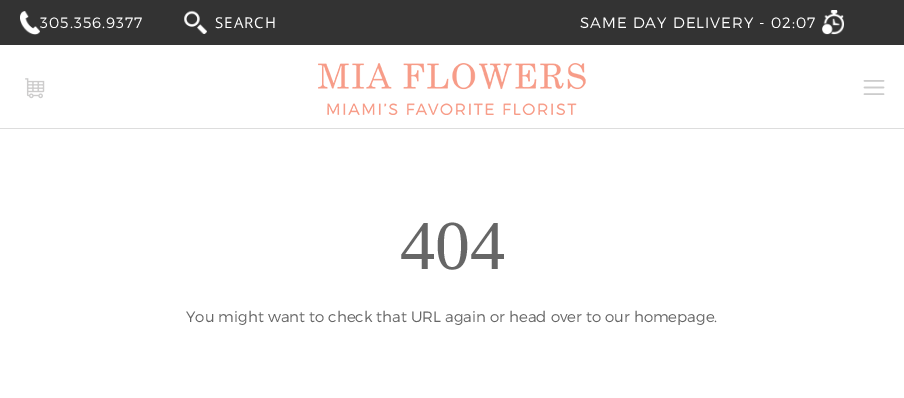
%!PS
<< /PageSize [904 398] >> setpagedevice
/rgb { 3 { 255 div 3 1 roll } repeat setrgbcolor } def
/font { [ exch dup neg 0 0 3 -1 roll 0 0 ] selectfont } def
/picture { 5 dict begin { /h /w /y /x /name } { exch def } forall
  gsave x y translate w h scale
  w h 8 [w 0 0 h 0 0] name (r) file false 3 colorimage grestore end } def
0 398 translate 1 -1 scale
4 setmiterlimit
255 255 255 rgb
0 0 904 398 rectfill
221 221 221 rgb
0 128 904 1 rectfill
51 51 51 rgb
0 0 904 45 rectfill
(img/1.rgb) 20 11 20 24 picture
(img/2.rgb) 184 10 23 24 picture
(img/3.rgb) 822 10 22 25 picture
(img/4.rgb) 25 78 20 21 picture
(img/5.rgb) 318 63 268 52 picture
(img/6.rgb) 863 80 22 15 picture
/Montserrat-Light 15 font
255 255 255 rgb
40 28 moveto 1 0 (305.356.9377) ashow
/OpenSans-Regular 15 font
215 28 moveto 1 0 (SEARCH) ashow
/Montserrat-Light 15 font
580 28 moveto 1 0 (SAME DAY DELIVERY - 02:07) ashow
/LiberationSerif-Regular 70 font
102 102 102 rgb
400 269 moveto (404) show
/Montserrat-Light 15 font
186 322 moveto (You might want to check that URL again or head over to our homepage.) show
showpage
